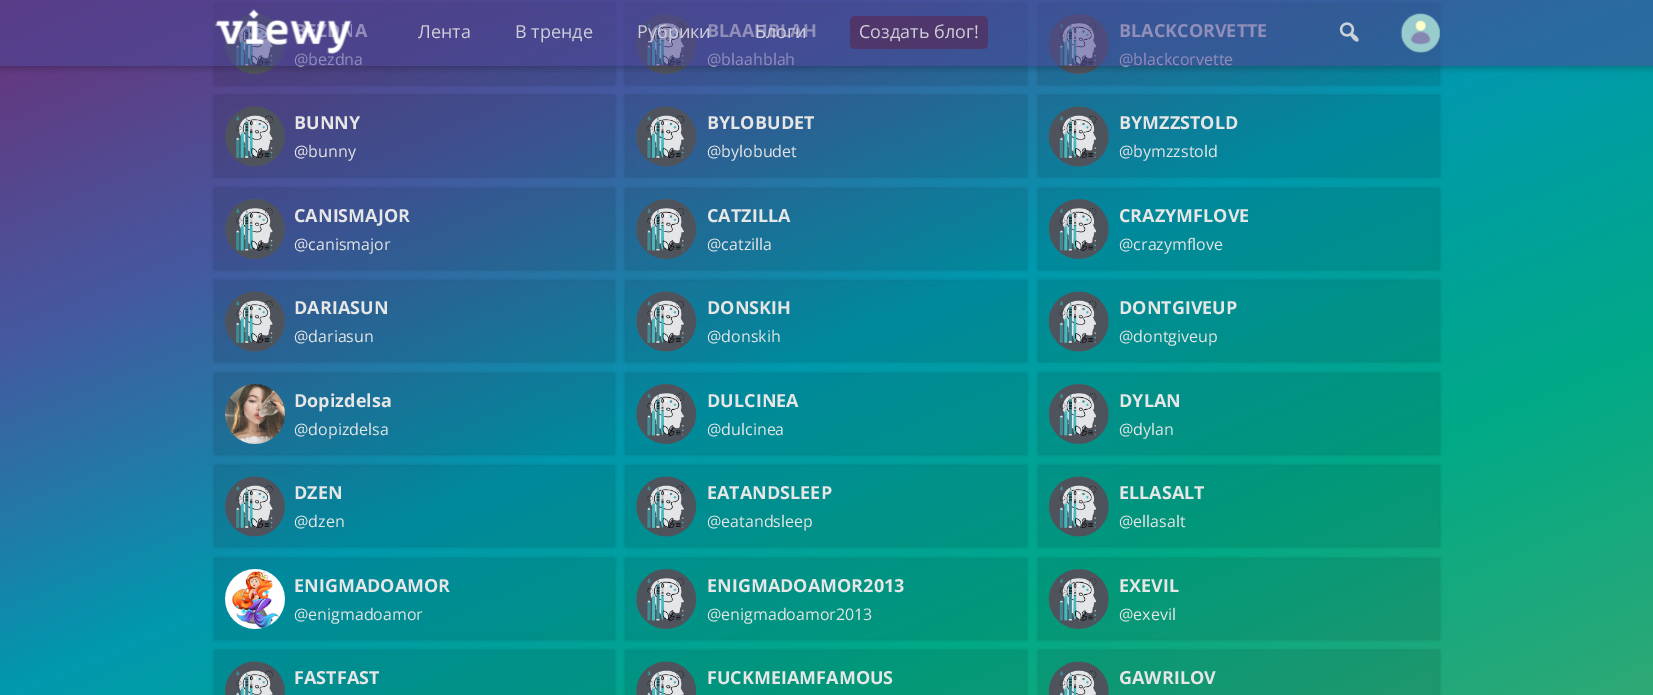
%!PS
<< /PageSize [1653 695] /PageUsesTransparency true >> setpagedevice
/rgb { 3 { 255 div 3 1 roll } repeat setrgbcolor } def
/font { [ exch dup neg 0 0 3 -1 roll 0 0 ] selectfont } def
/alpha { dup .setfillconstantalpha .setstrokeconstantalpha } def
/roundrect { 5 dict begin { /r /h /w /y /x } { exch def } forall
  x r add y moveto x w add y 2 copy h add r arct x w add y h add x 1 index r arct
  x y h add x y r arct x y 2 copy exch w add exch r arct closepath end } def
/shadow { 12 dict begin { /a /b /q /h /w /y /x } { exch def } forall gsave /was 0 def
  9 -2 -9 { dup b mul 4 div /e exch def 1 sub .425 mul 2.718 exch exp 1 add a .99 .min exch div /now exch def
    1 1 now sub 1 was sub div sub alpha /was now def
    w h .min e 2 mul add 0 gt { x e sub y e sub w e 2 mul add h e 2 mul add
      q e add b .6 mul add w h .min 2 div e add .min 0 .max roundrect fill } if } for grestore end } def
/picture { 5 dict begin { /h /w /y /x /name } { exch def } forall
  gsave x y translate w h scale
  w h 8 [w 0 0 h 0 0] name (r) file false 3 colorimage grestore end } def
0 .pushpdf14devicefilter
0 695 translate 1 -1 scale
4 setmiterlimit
255 255 255 rgb
0 0 1653 695 rectfill
gsave 0 0 moveto 1653 0 lineto 1653 695 lineto 0 695 lineto closepath clip newpath
<< /ShadingType 2 /ColorSpace /DeviceRGB /Coords [579 -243 1075 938] /Extend [true true] /Function << /FunctionType 3 /Domain [0 1] /Functions [<< /FunctionType 2 /Domain [0 1] /C0 [0.416 0.192 0.475] /C1 [0.271 0.349 0.627] /N 1 >> << /FunctionType 2 /Domain [0 1] /C0 [0.271 0.349 0.627] /C1 [0 0.6 0.682] /N 1 >> << /FunctionType 2 /Domain [0 1] /C0 [0 0.6 0.682] /C1 [0.004 0.663 0.529] /N 1 >> << /FunctionType 2 /Domain [0 1] /C0 [0.004 0.663 0.529] /C1 [0.184 0.659 0.459] /N 1 >>] /Bounds [0.25 0.5 0.75] /Encode [0 1 0 1 0 1 0 1] >> >> shfill grestore
gsave
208 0 moveto 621 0 lineto 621 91 lineto 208 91 lineto closepath 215 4 moveto 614 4 lineto 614 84 lineto 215 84 lineto closepath eoclip newpath
0 0 0 rgb
215 4 399 80 0 2 0.3 shadow
grestore
0.1 alpha
0 0 0 rgb
215 4 399 80 rectfill
1 alpha
(img/1.rgb) 225 14 60 60 picture
gsave
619 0 moveto 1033 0 lineto 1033 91 lineto 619 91 lineto closepath 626 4 moveto 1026 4 lineto 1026 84 lineto 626 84 lineto closepath eoclip newpath
626 4 400 80 0 2 0.3 shadow
grestore
0.1 alpha
626 4 400 80 rectfill
1 alpha
(img/2.rgb) 636 14 61 60 picture
gsave
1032 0 moveto 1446 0 lineto 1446 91 lineto 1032 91 lineto closepath 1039 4 moveto 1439 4 lineto 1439 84 lineto 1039 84 lineto closepath eoclip newpath
1039 4 400 80 0 2 0.3 shadow
grestore
0.1 alpha
1039 4 400 80 rectfill
1 alpha
(img/3.rgb) 1048 14 61 60 picture
gsave
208 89 moveto 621 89 lineto 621 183 lineto 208 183 lineto closepath 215 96 moveto 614 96 lineto 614 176 lineto 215 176 lineto closepath eoclip newpath
215 96 399 80 0 2 0.3 shadow
grestore
0.1 alpha
215 96 399 80 rectfill
1 alpha
(img/4.rgb) 225 106 60 61 picture
gsave
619 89 moveto 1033 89 lineto 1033 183 lineto 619 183 lineto closepath 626 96 moveto 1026 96 lineto 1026 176 lineto 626 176 lineto closepath eoclip newpath
626 96 400 80 0 2 0.3 shadow
grestore
0.1 alpha
626 96 400 80 rectfill
1 alpha
(img/5.rgb) 636 106 61 61 picture
gsave
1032 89 moveto 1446 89 lineto 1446 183 lineto 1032 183 lineto closepath 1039 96 moveto 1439 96 lineto 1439 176 lineto 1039 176 lineto closepath eoclip newpath
1039 96 400 80 0 2 0.3 shadow
grestore
0.1 alpha
1039 96 400 80 rectfill
1 alpha
(img/6.rgb) 1048 106 61 61 picture
gsave
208 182 moveto 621 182 lineto 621 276 lineto 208 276 lineto closepath 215 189 moveto 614 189 lineto 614 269 lineto 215 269 lineto closepath eoclip newpath
215 189 399 80 0 2 0.3 shadow
grestore
0.1 alpha
215 189 399 80 rectfill
1 alpha
(img/7.rgb) 225 199 60 60 picture
gsave
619 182 moveto 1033 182 lineto 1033 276 lineto 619 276 lineto closepath 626 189 moveto 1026 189 lineto 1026 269 lineto 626 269 lineto closepath eoclip newpath
626 189 400 80 0 2 0.3 shadow
grestore
0.1 alpha
626 189 400 80 rectfill
1 alpha
(img/8.rgb) 636 199 61 60 picture
gsave
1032 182 moveto 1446 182 lineto 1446 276 lineto 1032 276 lineto closepath 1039 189 moveto 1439 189 lineto 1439 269 lineto 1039 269 lineto closepath eoclip newpath
1039 189 400 80 0 2 0.3 shadow
grestore
0.1 alpha
1039 189 400 80 rectfill
1 alpha
(img/9.rgb) 1048 199 61 60 picture
gsave
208 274 moveto 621 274 lineto 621 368 lineto 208 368 lineto closepath 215 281 moveto 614 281 lineto 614 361 lineto 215 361 lineto closepath eoclip newpath
215 281 399 80 0 2 0.3 shadow
grestore
0.1 alpha
215 281 399 80 rectfill
1 alpha
(img/10.rgb) 225 291 60 61 picture
gsave
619 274 moveto 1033 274 lineto 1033 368 lineto 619 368 lineto closepath 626 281 moveto 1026 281 lineto 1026 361 lineto 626 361 lineto closepath eoclip newpath
626 281 400 80 0 2 0.3 shadow
grestore
0.1 alpha
626 281 400 80 rectfill
1 alpha
(img/11.rgb) 636 291 61 61 picture
gsave
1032 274 moveto 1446 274 lineto 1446 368 lineto 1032 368 lineto closepath 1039 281 moveto 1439 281 lineto 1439 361 lineto 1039 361 lineto closepath eoclip newpath
1039 281 400 80 0 2 0.3 shadow
grestore
0.1 alpha
1039 281 400 80 rectfill
1 alpha
(img/12.rgb) 1048 291 61 61 picture
gsave
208 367 moveto 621 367 lineto 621 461 lineto 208 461 lineto closepath 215 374 moveto 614 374 lineto 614 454 lineto 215 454 lineto closepath eoclip newpath
215 374 399 80 0 2 0.3 shadow
grestore
0.1 alpha
215 374 399 80 rectfill
1 alpha
(img/13.rgb) 225 384 60 60 picture
gsave
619 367 moveto 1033 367 lineto 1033 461 lineto 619 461 lineto closepath 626 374 moveto 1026 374 lineto 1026 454 lineto 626 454 lineto closepath eoclip newpath
626 374 400 80 0 2 0.3 shadow
grestore
0.1 alpha
626 374 400 80 rectfill
1 alpha
(img/14.rgb) 636 384 61 60 picture
gsave
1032 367 moveto 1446 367 lineto 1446 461 lineto 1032 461 lineto closepath 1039 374 moveto 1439 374 lineto 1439 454 lineto 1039 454 lineto closepath eoclip newpath
1039 374 400 80 0 2 0.3 shadow
grestore
0.1 alpha
1039 374 400 80 rectfill
1 alpha
(img/15.rgb) 1048 384 61 60 picture
gsave
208 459 moveto 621 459 lineto 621 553 lineto 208 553 lineto closepath 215 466 moveto 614 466 lineto 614 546 lineto 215 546 lineto closepath eoclip newpath
215 466 399 80 0 2 0.3 shadow
grestore
0.1 alpha
215 466 399 80 rectfill
1 alpha
(img/16.rgb) 225 476 60 61 picture
gsave
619 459 moveto 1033 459 lineto 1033 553 lineto 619 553 lineto closepath 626 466 moveto 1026 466 lineto 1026 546 lineto 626 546 lineto closepath eoclip newpath
626 466 400 80 0 2 0.3 shadow
grestore
0.1 alpha
626 466 400 80 rectfill
1 alpha
(img/17.rgb) 636 476 61 61 picture
gsave
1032 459 moveto 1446 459 lineto 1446 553 lineto 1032 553 lineto closepath 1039 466 moveto 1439 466 lineto 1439 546 lineto 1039 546 lineto closepath eoclip newpath
1039 466 400 80 0 2 0.3 shadow
grestore
0.1 alpha
1039 466 400 80 rectfill
1 alpha
(img/18.rgb) 1048 476 61 61 picture
gsave
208 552 moveto 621 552 lineto 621 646 lineto 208 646 lineto closepath 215 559 moveto 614 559 lineto 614 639 lineto 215 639 lineto closepath eoclip newpath
215 559 399 80 0 2 0.3 shadow
grestore
0.1 alpha
215 559 399 80 rectfill
1 alpha
(img/19.rgb) 225 569 60 60 picture
gsave
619 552 moveto 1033 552 lineto 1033 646 lineto 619 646 lineto closepath 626 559 moveto 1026 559 lineto 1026 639 lineto 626 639 lineto closepath eoclip newpath
626 559 400 80 0 2 0.3 shadow
grestore
0.1 alpha
626 559 400 80 rectfill
1 alpha
(img/20.rgb) 636 569 61 60 picture
gsave
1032 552 moveto 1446 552 lineto 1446 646 lineto 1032 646 lineto closepath 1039 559 moveto 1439 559 lineto 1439 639 lineto 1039 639 lineto closepath eoclip newpath
1039 559 400 80 0 2 0.3 shadow
grestore
0.1 alpha
1039 559 400 80 rectfill
1 alpha
(img/21.rgb) 1048 569 61 60 picture
gsave
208 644 moveto 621 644 lineto 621 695 lineto 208 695 lineto closepath 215 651 moveto 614 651 lineto 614 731 lineto 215 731 lineto closepath eoclip newpath
215 651 399 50 0 2 0.3 shadow
grestore
0.1 alpha
215 651 399 44 rectfill
1 alpha
(img/22.rgb) 225 661 60 34 picture
gsave
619 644 moveto 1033 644 lineto 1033 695 lineto 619 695 lineto closepath 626 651 moveto 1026 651 lineto 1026 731 lineto 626 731 lineto closepath eoclip newpath
626 651 400 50 0 2 0.3 shadow
grestore
0.1 alpha
626 651 400 44 rectfill
1 alpha
(img/23.rgb) 636 661 61 34 picture
gsave
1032 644 moveto 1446 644 lineto 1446 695 lineto 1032 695 lineto closepath 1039 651 moveto 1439 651 lineto 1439 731 lineto 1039 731 lineto closepath eoclip newpath
1039 651 400 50 0 2 0.3 shadow
grestore
0.1 alpha
1039 651 400 44 rectfill
1 alpha
(img/24.rgb) 1048 661 61 34 picture
gsave
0 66 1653 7 rectclip
0 0 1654 66 0 4.5 0.35 shadow
grestore
/OpenSans-Bold 18 font
230 230 230 rgb
355 37 moveto (A) show
/OpenSans-Regular 16 font
294 65 moveto (@bezdna) show
/OpenSans-Bold 18 font
707 37 moveto (BLAAHBLAH) show
/OpenSans-Regular 16 font
707 65 moveto (@blaahblah) show
/OpenSans-Bold 18 font
1119 37 moveto (BLACKCORVETTE) show
/OpenSans-Regular 16 font
1119 65 moveto (@blackcorvette) show
/OpenSans-Bold 18 font
294 129 moveto (BUNNY) show
/OpenSans-Regular 16 font
294 157 moveto (@bunny) show
/OpenSans-Bold 18 font
707 129 moveto (BYLOBUDET) show
/OpenSans-Regular 16 font
707 157 moveto (@bylobudet) show
/OpenSans-Bold 18 font
1119 129 moveto (BYMZZSTOLD) show
/OpenSans-Regular 16 font
1119 157 moveto (@bymzzstold) show
/OpenSans-Bold 18 font
294 222 moveto (CANISMAJOR) show
/OpenSans-Regular 16 font
294 250 moveto (@canismajor) show
/OpenSans-Bold 18 font
707 222 moveto (CATZILLA) show
/OpenSans-Regular 16 font
707 250 moveto (@catzilla) show
/OpenSans-Bold 18 font
1119 222 moveto (CRAZYMFLOVE) show
/OpenSans-Regular 16 font
1119 250 moveto (@crazymflove) show
/OpenSans-Bold 18 font
294 314 moveto (DARIASUN) show
/OpenSans-Regular 16 font
294 342 moveto (@dariasun) show
/OpenSans-Bold 18 font
707 314 moveto (DONSKIH) show
/OpenSans-Regular 16 font
707 342 moveto (@donskih) show
/OpenSans-Bold 18 font
1119 314 moveto (DONTGIVEUP) show
/OpenSans-Regular 16 font
1119 342 moveto (@dontgiveup) show
/OpenSans-Bold 18 font
294 407 moveto (Dopizdelsa) show
/OpenSans-Regular 16 font
294 435 moveto (@dopizdelsa) show
/OpenSans-Bold 18 font
707 407 moveto (DULCINEA) show
/OpenSans-Regular 16 font
707 435 moveto (@dulcinea) show
/OpenSans-Bold 18 font
1119 407 moveto (DYLAN) show
/OpenSans-Regular 16 font
1119 435 moveto (@dylan) show
/OpenSans-Bold 18 font
294 499 moveto (DZEN) show
/OpenSans-Regular 16 font
294 527 moveto (@dzen) show
/OpenSans-Bold 18 font
707 499 moveto (EATANDSLEEP) show
/OpenSans-Regular 16 font
707 527 moveto (@eatandsleep) show
/OpenSans-Bold 18 font
1119 499 moveto (ELLASALT) show
/OpenSans-Regular 16 font
1119 527 moveto (@ellasalt) show
/OpenSans-Bold 18 font
294 592 moveto (ENIGMADOAMOR) show
/OpenSans-Regular 16 font
294 620 moveto (@enigmadoamor) show
/OpenSans-Bold 18 font
707 592 moveto (ENIGMADOAMOR2013) show
/OpenSans-Regular 16 font
707 620 moveto (@enigmadoamor2013) show
/OpenSans-Bold 18 font
1119 592 moveto (EXEVIL) show
/OpenSans-Regular 16 font
1119 620 moveto (@exevil) show
/OpenSans-Bold 18 font
[
  [(FASTFAST) 294 684]
  [(FUCKMEIAMFAMOUS) 707 684]
  [(GAWRILOV) 1119 684]
] { aload pop moveto show } forall
0.55 alpha
75 70 150 rgb
0 0 1653 66 rectfill
1 alpha
(img/25.rgb) 214 9 138 45 picture
/OpenSans-Regular 18 font
207 206 217 rgb
[
  [(Лента) 418 38]
  [(В тренде) 515 38]
  [(Рубрики) 637 38]
  [(Блоги) 755 38]
] { aload pop moveto show } forall
0.42 alpha
100 20 50 rgb
850 16 138 33 5 roundrect fill
1 alpha
207 206 217 rgb
859 38 moveto (Создать блог!) show
(img/26.rgb) 1339 22 20 20 picture
(img/27.rgb) 1400 13 41 40 picture
.poppdf14devicefilter showpage
